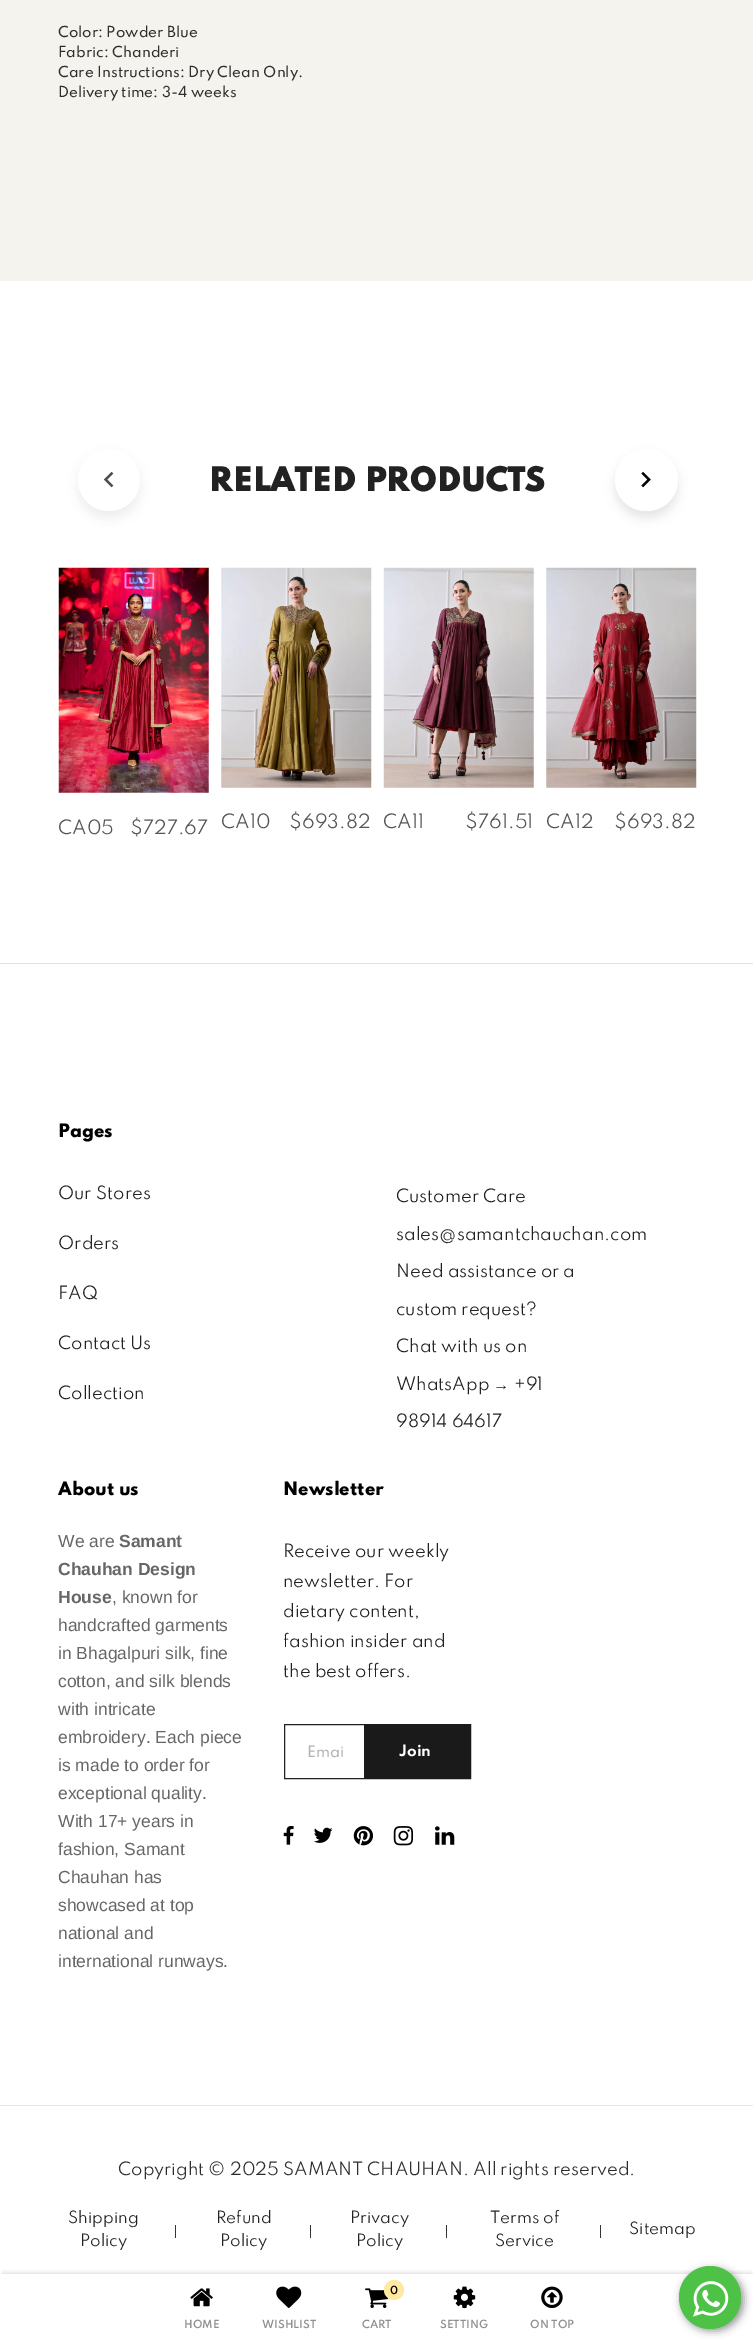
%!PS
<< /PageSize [753 2341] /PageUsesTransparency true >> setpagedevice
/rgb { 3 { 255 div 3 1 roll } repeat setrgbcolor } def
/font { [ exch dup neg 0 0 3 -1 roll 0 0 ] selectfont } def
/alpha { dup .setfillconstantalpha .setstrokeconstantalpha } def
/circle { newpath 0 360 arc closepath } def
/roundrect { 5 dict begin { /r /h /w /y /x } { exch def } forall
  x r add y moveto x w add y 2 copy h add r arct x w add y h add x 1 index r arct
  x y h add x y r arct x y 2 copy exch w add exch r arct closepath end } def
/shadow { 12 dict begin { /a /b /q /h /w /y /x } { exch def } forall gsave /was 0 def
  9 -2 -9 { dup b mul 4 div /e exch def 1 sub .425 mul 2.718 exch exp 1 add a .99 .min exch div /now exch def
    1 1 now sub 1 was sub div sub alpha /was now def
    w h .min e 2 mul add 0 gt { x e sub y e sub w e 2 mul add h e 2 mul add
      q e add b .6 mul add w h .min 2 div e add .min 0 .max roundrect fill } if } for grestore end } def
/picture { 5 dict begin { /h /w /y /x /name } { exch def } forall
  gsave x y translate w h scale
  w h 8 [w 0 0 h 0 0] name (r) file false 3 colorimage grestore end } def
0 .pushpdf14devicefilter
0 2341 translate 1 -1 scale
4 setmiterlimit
255 255 255 rgb
0 0 753 2341 rectfill
245 243 238 rgb
0 0 753 281 rectfill
77 77 77 rgb
78 455 62 63 31 5 0.1 shadow
255 255 255 rgb
109 480 31 circle fill
(img/1.rgb) 103 471 11 17 picture
0 0 0 rgb
615 455 63 63 31.5 5 0.1 shadow
255 255 255 rgb
615 449 63 62 31 roundrect fill
(img/2.rgb) 641 471 10 17 picture
(img/3.rgb) 58 567 151 226 picture
(img/4.rgb) 221 567 151 221 picture
(img/5.rgb) 383 567 151 221 picture
(img/6.rgb) 546 567 151 221 picture
224 224 224 rgb
0 963 753 1 rectfill
34 34 34 rgb
284.5 1724.5 186 54 rectstroke
26 26 26 rgb
364 1724 107 55 rectfill
(img/7.rgb) 283 1826 11 19 picture
(img/8.rgb) 314 1827 19 16 picture
(img/9.rgb) 353 1826 20 20 picture
(img/10.rgb) 393 1826 21 20 picture
(img/11.rgb) 435 1826 20 19 picture
[
  [0 2105 753 1 235 232 226]
  [175 2225 1 13 52 52 52]
  [310 2225 1 13 52 52 52]
  [446 2225 1 13 52 52 52]
  [600 2225 1 13 52 52 52]
] { aload pop rgb rectfill } forall
0 0 0 rgb
681 2269 63 62 31 4 0.4 shadow
gsave
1 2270 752 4 rectclip
3 2274 748 62 0 3 0.2 shadow
grestore
77 194 71 rgb
679 2266 62 63 31 roundrect fill
(img/12.rgb) 693 2281 36 36 picture
(img/13.rgb) 190 2288 23 19 picture
(img/14.rgb) 276 2286 26 22 picture
(img/15.rgb) 365 2288 24 20 picture
255 232 162 rgb
394 2290 10 circle fill
(img/16.rgb) 453 2286 23 23 picture
(img/17.rgb) 541 2286 22 22 picture
/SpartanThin-Medium 13.5 font
45 45 45 rgb
[
  [(Color: Powder Blue) 58 37]
  [(Fabric: Chanderi) 58 57]
  [(Care Instructions: Dry Clean Only.) 58 77]
  [(Delivery time: 3-4 weeks) 58 97]
] { aload pop moveto show } forall
/SpartanThin-Black 30 font
34 34 34 rgb
209 491 moveto (RELATED PRODUCTS) show
/SpartanThin-Regular 17.5 font
85 85 85 rgb
[
  [(CA05) 58 834]
  [($727.67) 130 834]
  [(CA10) 221 828]
  [($693.82) 289 828]
  [(CA11) 383 828]
  [($761.51) 465 828]
  [(CA12) 546 828]
  [($693.82) 614 828]
] { aload pop moveto show } forall
/SpartanThin-ExtraBold 16.5 font
0 0 0 rgb
58 1137 moveto (Pages) show
/SpartanThin-Regular 16.25 font
34 34 34 rgb
[
  [(Our Stores) 58 1199]
  [(Orders) 58 1249]
  [(FAQ) 58 1299]
  [(Contact Us) 58 1349]
  [(Collection) 58 1399]
  [(Customer Care) 396 1202]
  [(sales@samantchauchan.com) 396 1240]
  [(Need assistance or a) 396 1277]
  [(custom request?) 396 1315]
  [(Chat with us on) 396 1352]
  [(WhatsApp) 396 1390]
] { aload pop moveto show } forall
/LiberationSans-Regular 16.25 font
493 1390 moveto (→) show
/SpartanThin-Regular 16.25 font
514 1390 moveto (+91) show
396 1427 moveto (98914 64617) show
/SpartanThin-ExtraBold 16.5 font
0 0 0 rgb
58 1495 moveto (About us) show
/LiberationSans-Regular 17.5 font
102 102 102 rgb
58 1547 moveto (We are) show
/LiberationSans-Bold 17.5 font
[
  [(Samant) 119 1547]
  [(Chauhan Design) 58 1575]
  [(House) 58 1603]
] { aload pop moveto show } forall
/LiberationSans-Regular 17.5 font
[
  [(, known for) 112 1603]
  [(handcrafted garments) 58 1631]
  [(in Bhagalpuri silk, fine) 58 1659]
  [(cotton, and silk blends) 58 1687]
  [(with intricate) 58 1715]
  [(embroidery. Each piece) 58 1743]
  [(is made to order for) 58 1771]
  [(exceptional quality.) 58 1799]
  [(With 17+ years in) 58 1827]
  [(fashion, Samant) 58 1855]
  [(Chauhan has) 58 1883]
  [(showcased at top) 58 1911]
  [(national and) 58 1939]
  [(international runways.) 58 1967]
] { aload pop moveto show } forall
/SpartanThin-ExtraBold 16.5 font
0 0 0 rgb
283 1495 moveto (Newsletter) show
/SpartanThin-Regular 16.25 font
34 34 34 rgb
[
  [(Receive our weekly) 283 1557]
  [(newsletter. For) 283 1587]
  [(dietary content,) 283 1617]
  [(fashion insider and) 283 1647]
  [(the best offers.) 283 1677]
] { aload pop moveto show } forall
/SpartanThin-Medium 14 font
178 178 178 rgb
307 1757 moveto (Emai) show
/SpartanThin-Bold 14 font
255 255 255 rgb
399 1756 moveto (Join) show
/SpartanThin-Regular 16.25 font
45 45 45 rgb
118 2175 moveto (Copyright © 2025 SAMANT CHAUHAN. All rights reserved.) show
/SpartanThin-Regular 15 font
34 34 34 rgb
[
  [(Shipping) 68 2223]
  [(Policy) 80 2246]
  [(Refund) 216 2223]
  [(Policy) 220 2246]
  [(Privacy) 350 2223]
  [(Policy) 356 2246]
  [(Terms of) 490 2223]
  [(Service) 495 2246]
  [(Sitemap) 629 2234]
] { aload pop moveto show } forall
/SpartanThin-SemiBold 10 font
144 144 144 rgb
184 2328 moveto (HOME) show
262 2328 moveto (WISHLIST) show
0 0 0 rgb
390 2294 moveto (0) show
144 144 144 rgb
[
  [(CART) 362 2328]
  [(SETTING) 440 2328]
  [(ON TOP) 530 2328]
] { aload pop moveto show } forall
.poppdf14devicefilter showpage
